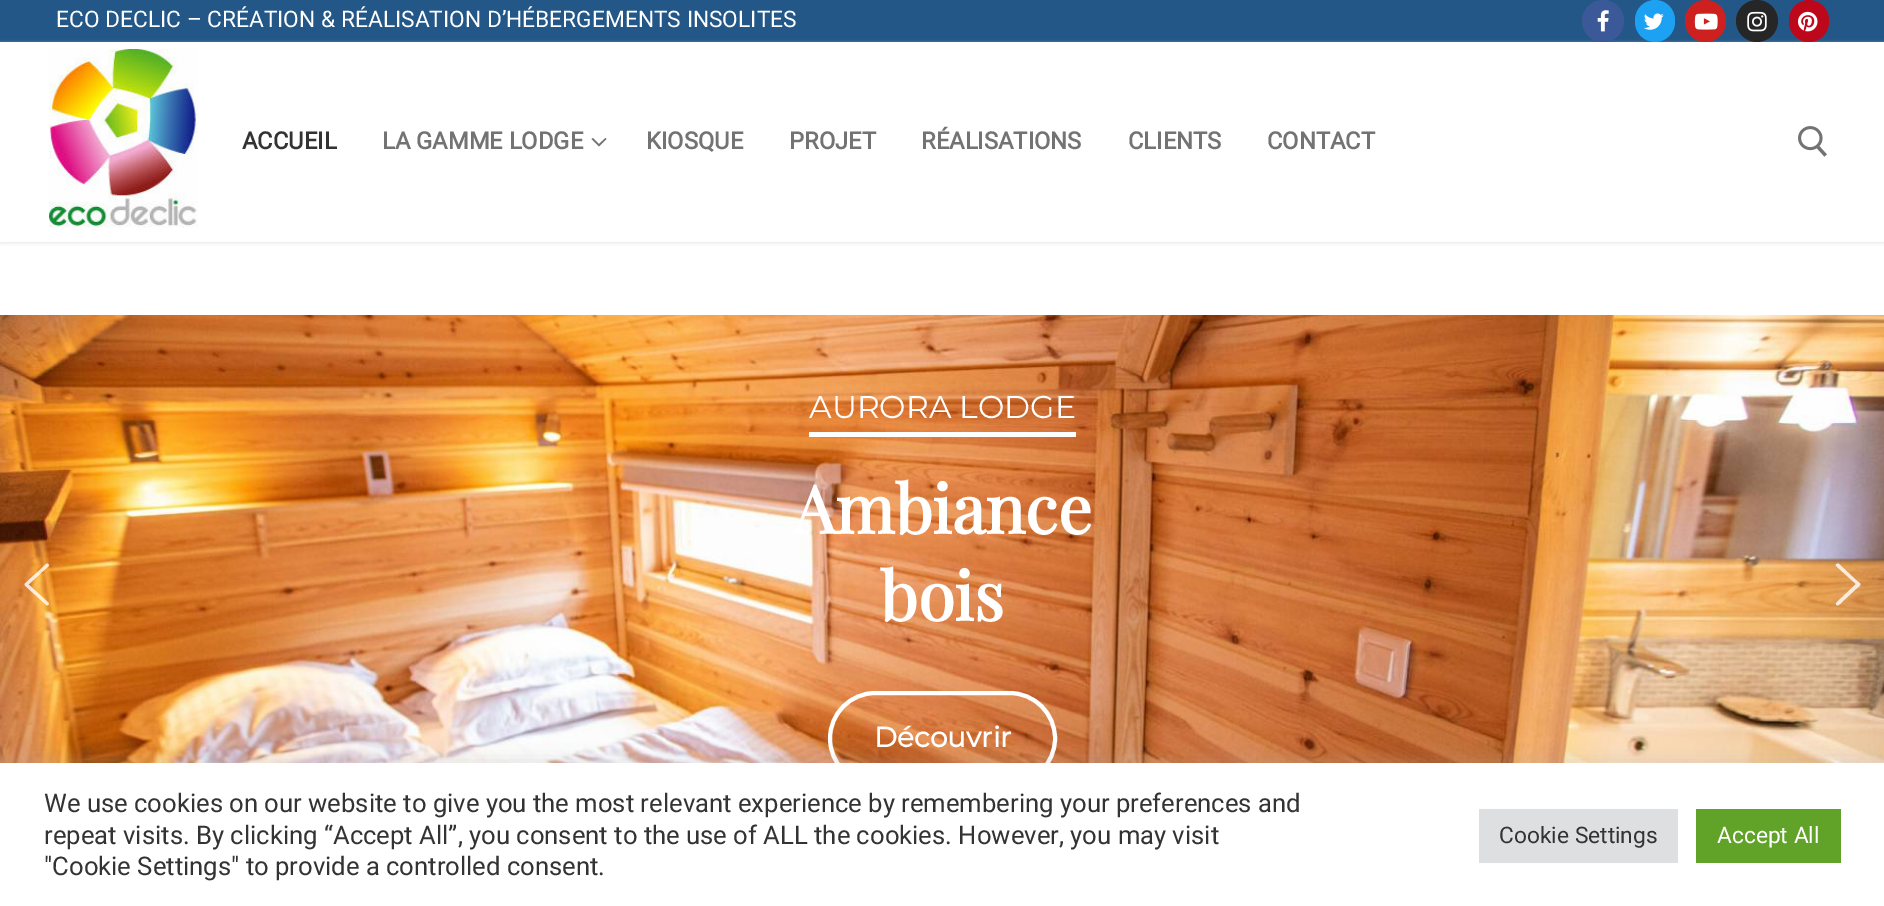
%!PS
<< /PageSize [1884 906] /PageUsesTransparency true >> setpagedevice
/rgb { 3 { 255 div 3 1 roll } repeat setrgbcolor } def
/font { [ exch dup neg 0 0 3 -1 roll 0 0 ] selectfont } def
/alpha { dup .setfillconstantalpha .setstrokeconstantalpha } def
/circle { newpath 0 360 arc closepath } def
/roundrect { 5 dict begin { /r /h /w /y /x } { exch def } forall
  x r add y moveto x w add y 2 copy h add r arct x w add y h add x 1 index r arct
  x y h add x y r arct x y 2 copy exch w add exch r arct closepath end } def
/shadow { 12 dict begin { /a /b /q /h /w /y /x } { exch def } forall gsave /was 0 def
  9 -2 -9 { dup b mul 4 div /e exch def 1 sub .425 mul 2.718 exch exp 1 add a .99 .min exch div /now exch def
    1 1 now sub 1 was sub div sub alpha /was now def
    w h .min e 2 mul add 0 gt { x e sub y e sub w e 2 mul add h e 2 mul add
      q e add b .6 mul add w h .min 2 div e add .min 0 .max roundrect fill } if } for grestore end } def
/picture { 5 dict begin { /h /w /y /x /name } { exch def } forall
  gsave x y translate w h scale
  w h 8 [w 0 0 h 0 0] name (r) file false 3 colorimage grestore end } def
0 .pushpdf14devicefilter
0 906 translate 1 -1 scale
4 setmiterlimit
255 255 255 rgb
0 0 1884 906 rectfill
35 87 135 rgb
0 0 1884 42 rectfill
225 229 234 rgb
0 44 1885 199 0 2 1 shadow
59 89 152 rgb
1603 21 21 circle fill
(img/1.rgb) 1597 10 12 22 picture
29 161 242 rgb
1635 0 40 42 20 roundrect fill
(img/2.rgb) 1644 13 20 17 picture
205 32 31 rgb
1685 0 41 42 20.5 roundrect fill
(img/3.rgb) 1694 13 24 17 picture
38 38 38 rgb
1757 21 21 circle fill
(img/4.rgb) 1747 11 20 21 picture
189 8 28 rgb
1789 0 40 42 20 roundrect fill
(img/5.rgb) 1798 11 20 21 picture
255 255 255 rgb
0 42 1884 200 rectfill
(img/6.rgb) 49 49 149 179 picture
115 115 115 rgb
599 146.5 moveto 591.5 139 lineto 593 138 lineto 599 144 lineto closepath 606.5 139 moveto 599 146.5 lineto 599 144 lineto 605.5 138 lineto closepath fill
(img/7.rgb) 1798 126 29 31 picture
(img/9.rgb) 0 315 1884 448 picture
(img/8.rgb) 24 563 25 43 picture
255 255 255 rgb
809 432 267 5 rectfill
4 setlinewidth
830 693 225 91 45.5 roundrect stroke
0.8 alpha
1839 564 moveto 1838 563 1835 564 1836 566 curveto 1856 584 lineto 1836 603 lineto 1836 604 lineto 1837 608 1842 602 1842 602 curveto 1856 589 lineto 1862 584 1862 585 1856 580 curveto closepath eofill
1 alpha
172 171 171 rgb
0 761 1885 144 0 9 0.3 shadow
[
  [0 763 1884 143 255 255 255]
  [1479 809 199 54 222 223 224]
  [1696 809 145 54 97 162 41]
] { aload pop rgb rectfill } forall
/Roboto-Regular 22.75 font
255 255 255 rgb
56 27 moveto (ECO DECLIC – CRÉATION & RÉALISATION D’HÉBERGEMENTS INSOLITES) show
/Roboto-Bold 23.75 font
51 51 51 rgb
242 149 moveto (ACCUEIL) show
115 115 115 rgb
[
  [(LA GAMME LODGE) 382 149]
  [(KIOSQUE) 646 149]
  [(PROJET) 789 149]
  [(RÉALISATIONS) 921 149]
  [(CLIENTS) 1128 149]
  [(CONTACT) 1267 149]
] { aload pop moveto show } forall
/Montserrat-Regular 31.5 font
255 255 255 rgb
809 418 moveto (AURORA LODGE) show
/PlayfairDisplay-Bold 67 font
793 534 moveto (Ambiance) show
880 621 moveto (bois) show
/Montserrat-Bold 28 font
874 747 moveto (Découvrir) show
/Roboto-Regular 25.65 font
51 51 51 rgb
[
  [(We use cookies on our website to give you the most relevant experience by remembering your preferences and) 44 812]
  [(repeat visits. By clicking “Accept All”, you consent to the use of ALL the cookies. However, you may visit) 44 844]
  [("Cookie Settings" to provide a controlled consent.) 44 875]
] { aload pop moveto show } forall
/Roboto-Regular 22.75 font
1499 843 moveto (Cookie Settings) show
255 255 255 rgb
1717 843 moveto (Accept All) show
.poppdf14devicefilter showpage
